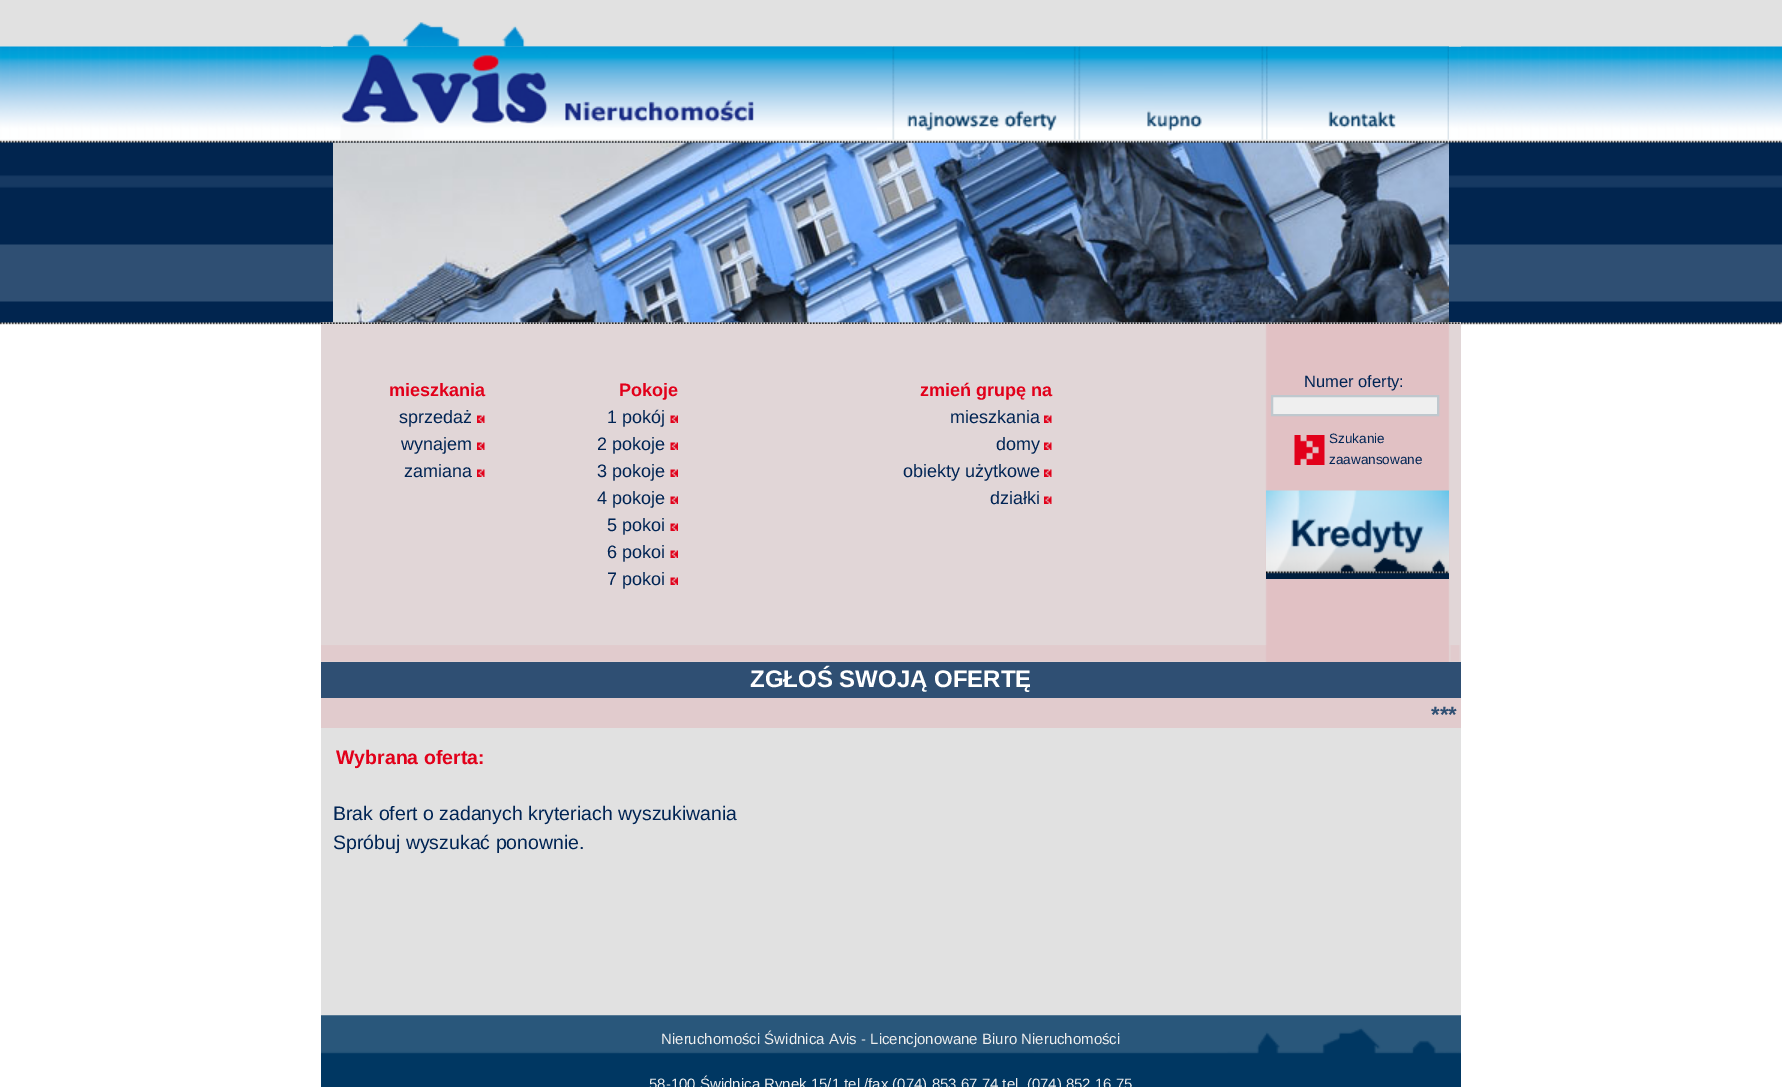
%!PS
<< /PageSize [1782 1087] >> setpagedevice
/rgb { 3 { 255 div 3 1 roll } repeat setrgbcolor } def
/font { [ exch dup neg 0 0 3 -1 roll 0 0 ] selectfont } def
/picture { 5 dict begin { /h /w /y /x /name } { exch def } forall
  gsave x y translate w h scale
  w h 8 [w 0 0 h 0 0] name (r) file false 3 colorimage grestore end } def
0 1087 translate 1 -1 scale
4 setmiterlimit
255 255 255 rgb
0 0 1782 1087 rectfill
(img/1.rgb) 0 0 1782 325 picture
(img/2.rgb) 321 22 1140 25 picture
(img/8.rgb) 321 322 1140 340 picture
(img/7.rgb) 333 142 1116 181 picture
(img/3.rgb) 333 46 560 97 picture
(img/4.rgb) 892 46 187 97 picture
(img/5.rgb) 1078 46 188 97 picture
(img/6.rgb) 1266 46 183 97 picture
(img/9.rgb) 321 322 1140 2 picture
(img/10.rgb) 477 415 8 8 picture
(img/10.rgb) 477 442 8 8 picture
(img/10.rgb) 477 469 8 8 picture
(img/11.rgb) 670 415 8 8 picture
(img/11.rgb) 670 442 8 8 picture
(img/11.rgb) 670 469 8 8 picture
(img/11.rgb) 670 496 8 8 picture
(img/11.rgb) 670 523 8 8 picture
(img/11.rgb) 670 550 8 8 picture
(img/11.rgb) 670 577 8 8 picture
(img/10.rgb) 1044 415 8 8 picture
(img/10.rgb) 1044 442 8 8 picture
(img/10.rgb) 1044 469 8 8 picture
(img/10.rgb) 1044 496 8 8 picture
239 239 239 rgb
1272 396 moveto 1438 396 lineto 1438 415 lineto 1272 415 lineto closepath gsave fill grestore
191 200 206 rgb
2 setlinewidth
stroke
(img/12.rgb) 1294 435 31 30 picture
(img/13.rgb) 1266 490 183 89 picture
(img/14.rgb) 321 645 1139 17 picture
[
  [321 662 1140 36 47 79 115]
  [321 698 1140 30 225 203 205]
  [321 728 1140 288 225 225 225]
] { aload pop rgb rectfill } forall
(img/15.rgb) 321 1015 1140 72 picture
(img/16.rgb) 321 1015 1140 39 picture
/LiberationSans-Bold 18 font
226 0 26 rgb
389 396 moveto (mieszkania) show
/LiberationSans-Regular 18 font
0 36 84 rgb
[
  [(sprzedaż) 399 423]
  [(wynajem) 401 450]
  [(zamiana) 404 477]
] { aload pop moveto show } forall
/LiberationSans-Bold 18 font
226 0 26 rgb
619 396 moveto (Pokoje) show
/LiberationSans-Regular 18 font
0 36 84 rgb
[
  [(1 pokój) 607 423]
  [(2 pokoje) 597 450]
  [(3 pokoje) 597 477]
  [(4 pokoje) 597 504]
  [(5 pokoi) 607 531]
  [(6 pokoi) 607 558]
  [(7 pokoi) 607 585]
] { aload pop moveto show } forall
/LiberationSans-Bold 18 font
226 0 26 rgb
920 396 moveto (zmień grupę na) show
/LiberationSans-Regular 18 font
0 36 84 rgb
[
  [(mieszkania) 950 423]
  [(domy) 996 450]
  [(obiekty użytkowe) 903 477]
  [(działki) 990 504]
] { aload pop moveto show } forall
/LiberationSans-Regular 16.5 font
1304 387 moveto (Numer oferty:) show
/LiberationSans-Regular 13.5 font
1329 443 moveto (Szukanie) show
1329 464 moveto (zaawansowane) show
/LiberationSans-Bold 24 font
255 255 255 rgb
750 687 moveto (ZGŁOŚ SWOJĄ OFERTĘ) show
/LiberationSans-Bold 22 font
47 79 115 rgb
1431 722 moveto (***) show
/LiberationSans-Bold 19.5 font
226 0 26 rgb
336 764 moveto (Wybrana oferta:) show
/LiberationSans-Regular 19.5 font
0 36 84 rgb
333 820 moveto (Brak ofert o zadanych kryteriach wyszukiwania) show
333 849 moveto (Spróbuj wyszukać ponownie.) show
/LiberationSans-Regular 15 font
238 238 238 rgb
661 1044 moveto (Nieruchomości Świdnica Avis - Licencjonowane Biuro Nieruchomości) show
649 1089 moveto (58-100 Świdnica Rynek 15/1 tel./fax \(074\) 853 67 74 tel. \(074\) 852 16 75) show
showpage
